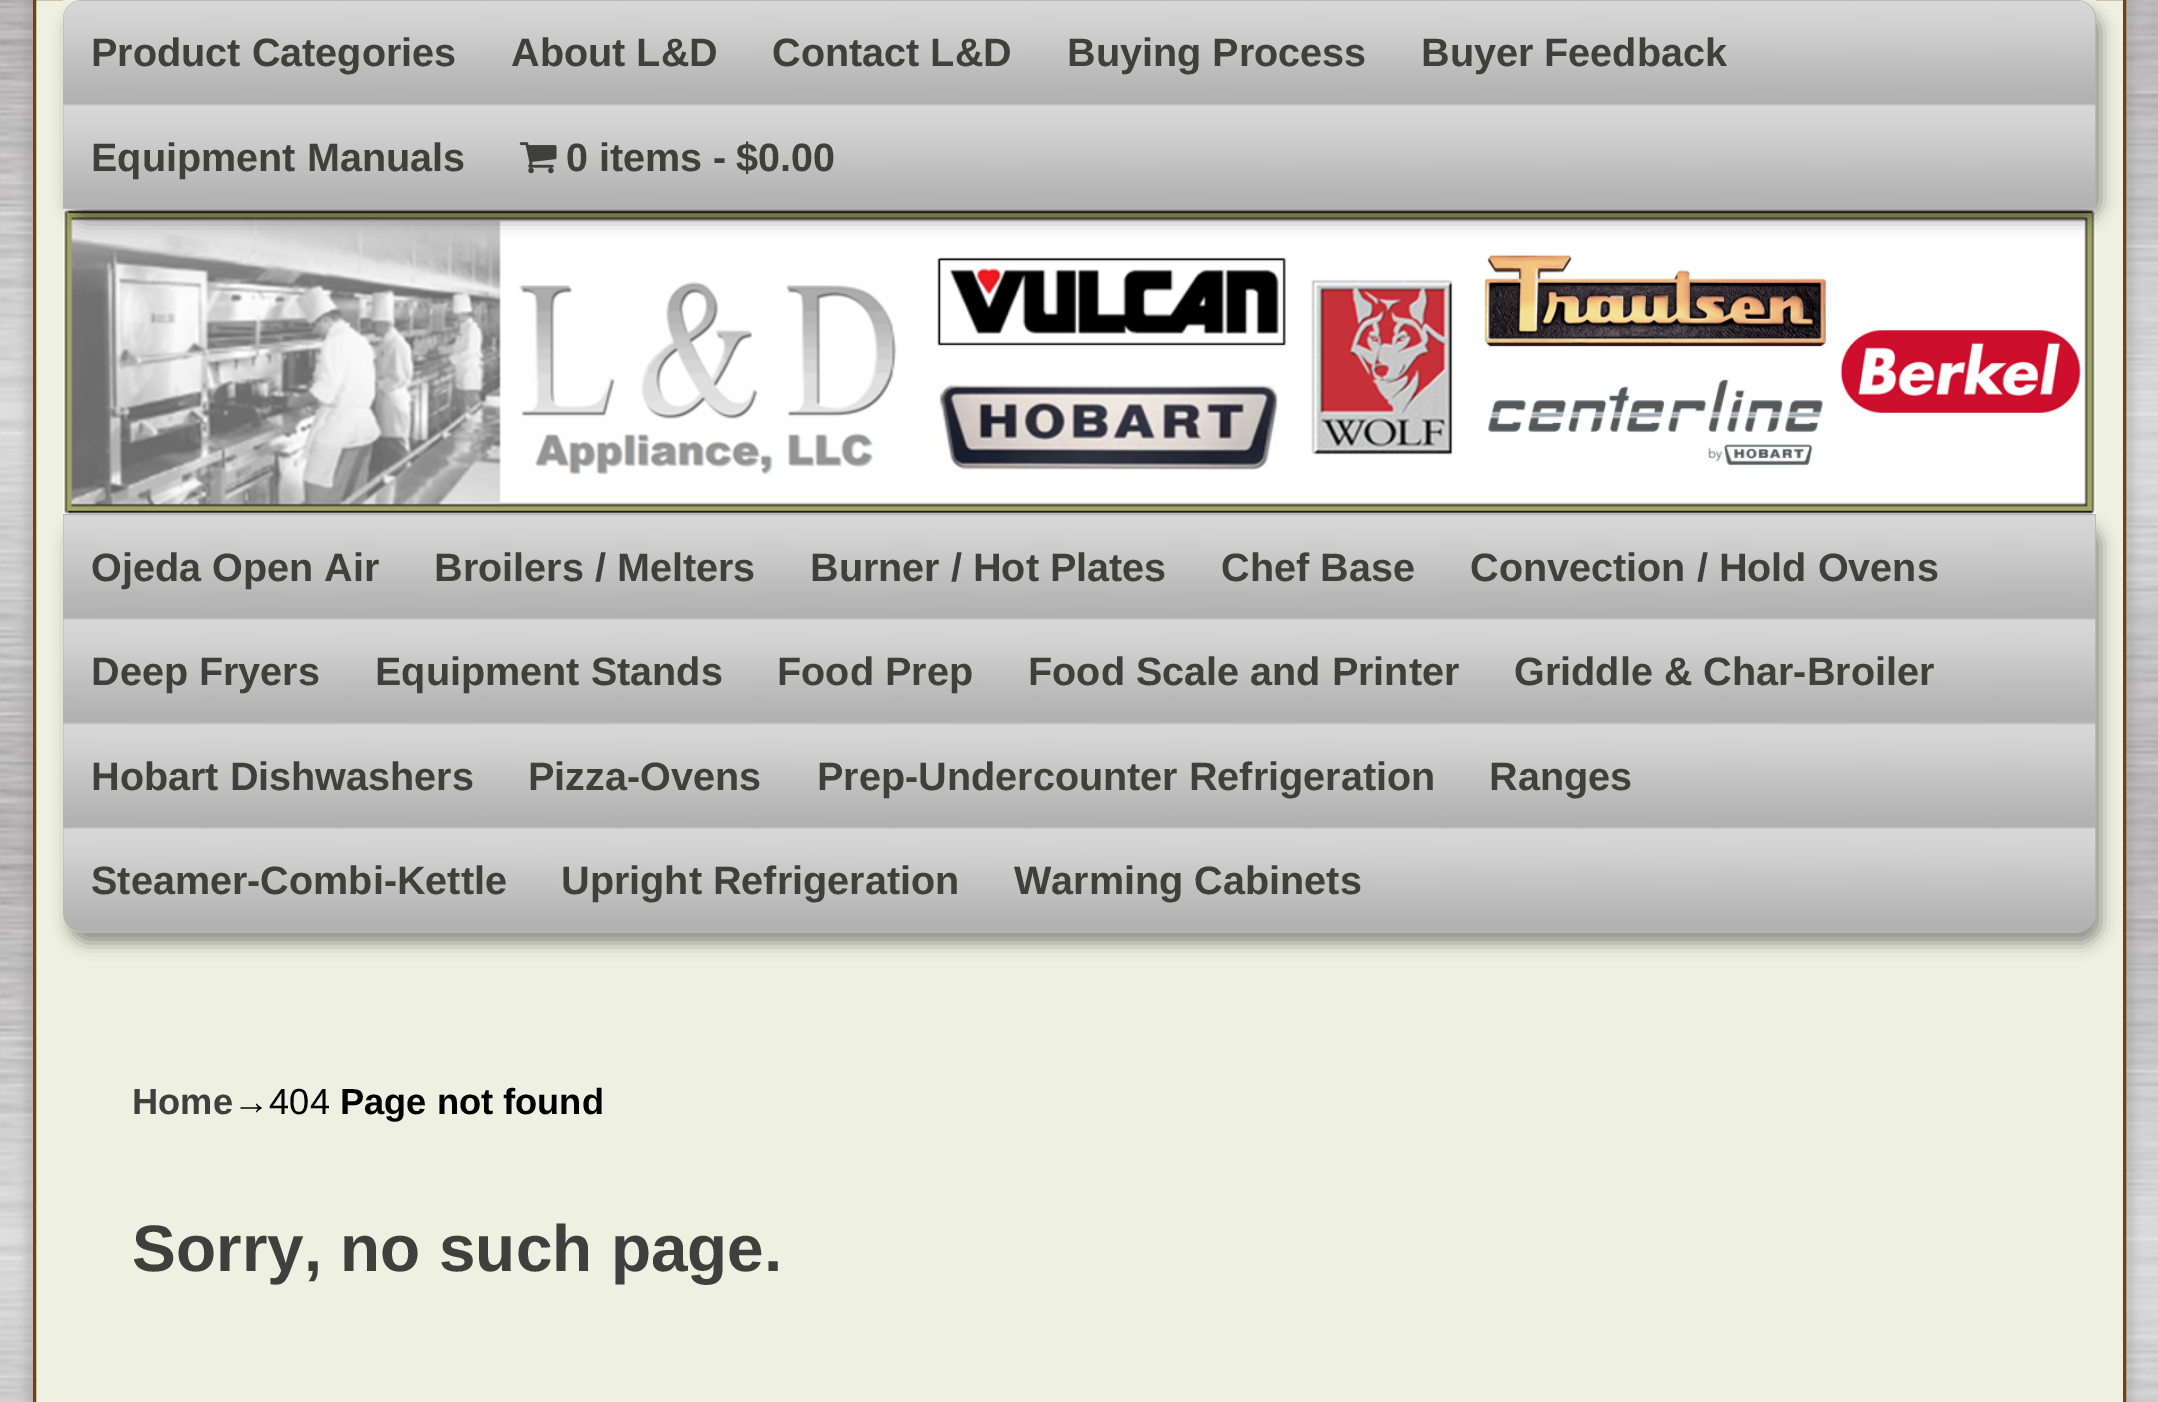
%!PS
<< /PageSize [2158 1402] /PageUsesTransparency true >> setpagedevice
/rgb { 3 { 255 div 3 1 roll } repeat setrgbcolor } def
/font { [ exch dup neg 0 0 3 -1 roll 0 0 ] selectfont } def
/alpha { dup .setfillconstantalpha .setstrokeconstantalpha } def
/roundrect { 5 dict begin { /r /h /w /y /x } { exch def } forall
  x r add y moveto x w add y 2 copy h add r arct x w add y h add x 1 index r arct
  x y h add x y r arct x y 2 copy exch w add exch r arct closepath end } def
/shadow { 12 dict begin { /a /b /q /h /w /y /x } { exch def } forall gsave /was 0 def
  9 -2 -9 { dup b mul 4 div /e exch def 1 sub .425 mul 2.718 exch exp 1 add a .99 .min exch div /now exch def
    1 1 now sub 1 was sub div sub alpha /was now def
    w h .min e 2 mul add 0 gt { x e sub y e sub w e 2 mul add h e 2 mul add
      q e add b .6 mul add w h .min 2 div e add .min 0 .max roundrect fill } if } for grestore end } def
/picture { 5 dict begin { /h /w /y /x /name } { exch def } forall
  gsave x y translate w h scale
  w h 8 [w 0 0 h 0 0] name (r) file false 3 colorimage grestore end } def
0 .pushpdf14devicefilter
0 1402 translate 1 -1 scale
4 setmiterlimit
255 255 255 rgb
0 0 2158 1402 rectfill
(img/1.rgb) 0 0 2158 1402 picture
127 127 127 rgb
25 -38 2109 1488 36 4 0.25 shadow
238 240 225 rgb
34.5 -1.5 moveto 2124.5 -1.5 lineto 2124.5 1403.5 lineto 34.5 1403.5 lineto closepath gsave fill grestore
122 61 17 rgb
3 setlinewidth
stroke
(img/4.rgb) 63 209 2033 305 picture
0 0 0 rgb
69 11 2032 209 19 8 0.4 shadow
176 176 176 rgb
82 0 moveto 2077 0 lineto 2087.5 0 2096 8.5 2096 19 curveto 2096 209 lineto 63 209 lineto 63 19 lineto 63 8.5 71.5 0 82 0 curveto closepath fill
(img/2.rgb) 63 0 2033 209 picture
(img/3.rgb) 519 142 38 32 picture
0 0 0 rgb
69 525 2032 418 19 8 0.4 shadow
176 176 176 rgb
63 514 moveto 2096 514 lineto 2096 913 lineto 2096 923.5 2087.5 932 2077 932 curveto 82 932 lineto 71.5 932 63 923.5 63 913 curveto closepath fill
(img/5.rgb) 63 514 2033 419 picture
/LiberationSans-Bold 39.6 font
63 64 61 rgb
[
  [(Product Categories) 91 66]
  [(About L&D) 511 66]
  [(Contact L&D) 772 66]
  [(Buying Process) 1067 66]
  [(Buyer Feedback) 1421 66]
  [(Equipment Manuals) 91 171]
  [(0 items) 566 171]
  [(-) 713 171]
  [($0.00) 736 171]
  [(Ojeda Open Air) 91 581]
  [(Broilers / Melters) 434 581]
  [(Burner / Hot Plates) 810 581]
  [(Chef Base) 1221 581]
  [(Convection / Hold Ovens) 1470 581]
  [(Deep Fryers) 91 685]
  [(Equipment Stands) 375 685]
  [(Food Prep) 777 685]
  [(Food Scale and Printer) 1028 685]
  [(Griddle & Char-Broiler) 1514 685]
  [(Hobart Dishwashers) 91 790]
  [(Pizza-Ovens) 528 790]
  [(Prep-Undercounter Refrigeration) 817 790]
  [(Ranges) 1489 790]
  [(Steamer-Combi-Kettle) 91 894]
  [(Upright Refrigeration) 561 894]
  [(Warming Cabinets) 1014 894]
] { aload pop moveto show } forall
/LiberationSans-Bold 36.25 font
132 1114 moveto (Home) show
/LiberationSans-Regular 36.25 font
0 0 0 rgb
233 1114 moveto (→404) show
/LiberationSans-Bold 36.25 font
340 1114 moveto (Page not found) show
/LiberationSans-Bold 65.75 font
63 64 61 rgb
132 1271 moveto (Sorry, no such page.) show
.poppdf14devicefilter showpage
